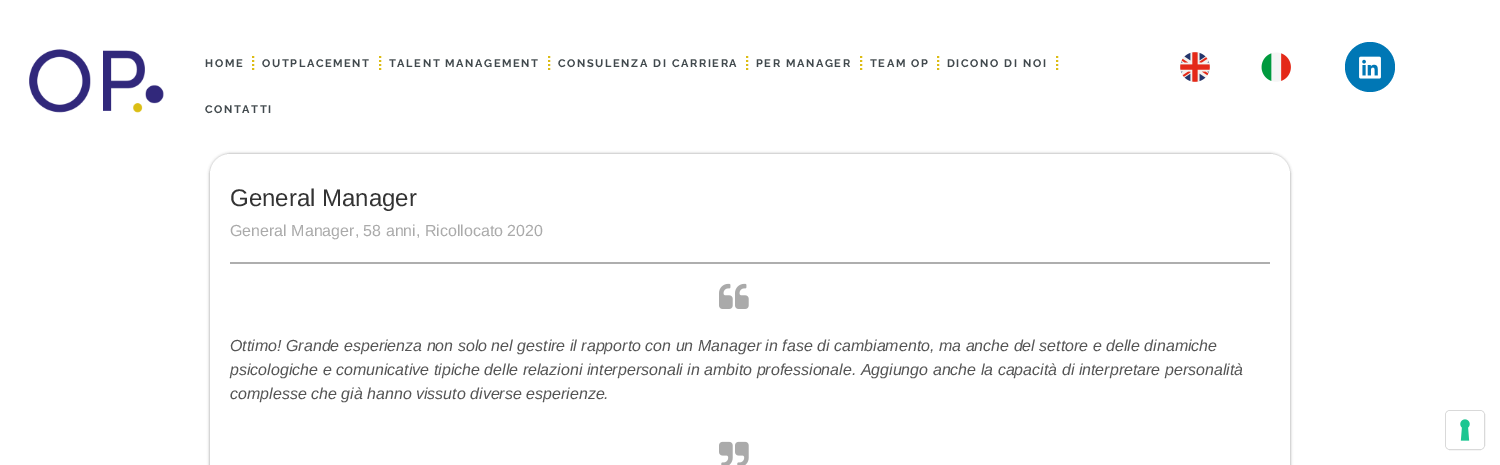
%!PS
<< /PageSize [1500 465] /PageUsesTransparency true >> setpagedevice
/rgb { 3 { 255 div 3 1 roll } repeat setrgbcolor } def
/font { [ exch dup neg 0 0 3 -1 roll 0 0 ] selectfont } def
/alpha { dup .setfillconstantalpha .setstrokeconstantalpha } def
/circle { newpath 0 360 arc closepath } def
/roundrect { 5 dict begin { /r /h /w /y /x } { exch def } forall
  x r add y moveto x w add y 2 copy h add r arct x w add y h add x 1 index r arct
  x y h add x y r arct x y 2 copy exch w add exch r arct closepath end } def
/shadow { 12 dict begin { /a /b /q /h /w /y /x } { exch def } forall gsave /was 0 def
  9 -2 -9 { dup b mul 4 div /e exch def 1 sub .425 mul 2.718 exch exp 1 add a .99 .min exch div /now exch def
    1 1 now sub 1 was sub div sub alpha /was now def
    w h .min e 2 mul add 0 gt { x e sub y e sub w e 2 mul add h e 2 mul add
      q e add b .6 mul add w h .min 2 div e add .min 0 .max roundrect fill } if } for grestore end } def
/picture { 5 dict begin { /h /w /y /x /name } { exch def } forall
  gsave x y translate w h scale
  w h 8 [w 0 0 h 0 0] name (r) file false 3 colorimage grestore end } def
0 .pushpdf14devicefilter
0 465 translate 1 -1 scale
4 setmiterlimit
255 255 255 rgb
0 0 1500 465 rectfill
(img/1.rgb) 29 49 135 64 picture
220 188 20 rgb
2 setlinewidth
[2 2] 0 setdash
253 56 moveto 253 72 lineto stroke
380 56 moveto 380 72 lineto stroke
549 56 moveto 549 72 lineto stroke
747 56 moveto 747 72 lineto stroke
861 56 moveto 861 72 lineto stroke
938 56 moveto 938 72 lineto stroke
1057 56 moveto 1057 72 lineto stroke
(img/2.rgb) 1180 52 30 30 picture
(img/3.rgb) 1261 52 30 30 picture
0 119 181 rgb
1370 67 25 circle fill
(img/4.rgb) 1359 56 22 23 picture
153 153 153 rgb
210 154 1080 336 20 1.5 1 shadow
255 255 255 rgb
210 154 1080 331 20 roundrect fill
174 174 174 rgb
230 262 1040 2 rectfill
(img/5.rgb) 719 283 30 26 picture
(img/6.rgb) 719 441 30 24 picture
217 217 217 rgb
1 setlinewidth
[] 0 setdash
1445.5 410.5 39 39 4.5 roundrect stroke
255 255 255 rgb
1446 411 38 38 4 roundrect fill
(img/7.rgb) 1460 419 10 22 picture
/Raleway-Bold 11 font
65 73 77 rgb
205 67 moveto 1.6 0 (HOME) ashow
262 67 moveto 1.6 0 (OUTPLACEMENT) ashow
389 67 moveto 1.6 0 (TALENT MANAGEMENT) ashow
558 67 moveto 1.6 0 (CONSULENZA DI CARRIERA) ashow
756 67 moveto 1.6 0 (PER MANAGER) ashow
870 67 moveto 1.6 0 (TEAM OP) ashow
947 67 moveto 1.6 0 (DICONO DI NOI) ashow
205 113 moveto 1.6 0 (CONTATTI) ashow
/LiberationSans-Regular 24 font
51 51 51 rgb
230 206 moveto (General Manager) show
/LiberationSans-Regular 16 font
170 170 170 rgb
230 236 moveto (General Manager, 58 anni, Ricollocato 2020) show
/LiberationSans-Italic 16 font
85 85 85 rgb
[
  [(Ottimo! Grande esperienza non solo nel gestire il rapporto con un Manager in fase di cambiamento, ma anche del settore e delle dinamiche) 230 351]
  [(psicologiche e comunicative tipiche delle relazioni interpersonali in ambito professionale. Aggiungo anche la capacità di interpretare personalità) 230 375]
  [(complesse che già hanno vissuto diverse esperienze.) 230 399]
] { aload pop moveto show } forall
.poppdf14devicefilter showpage
